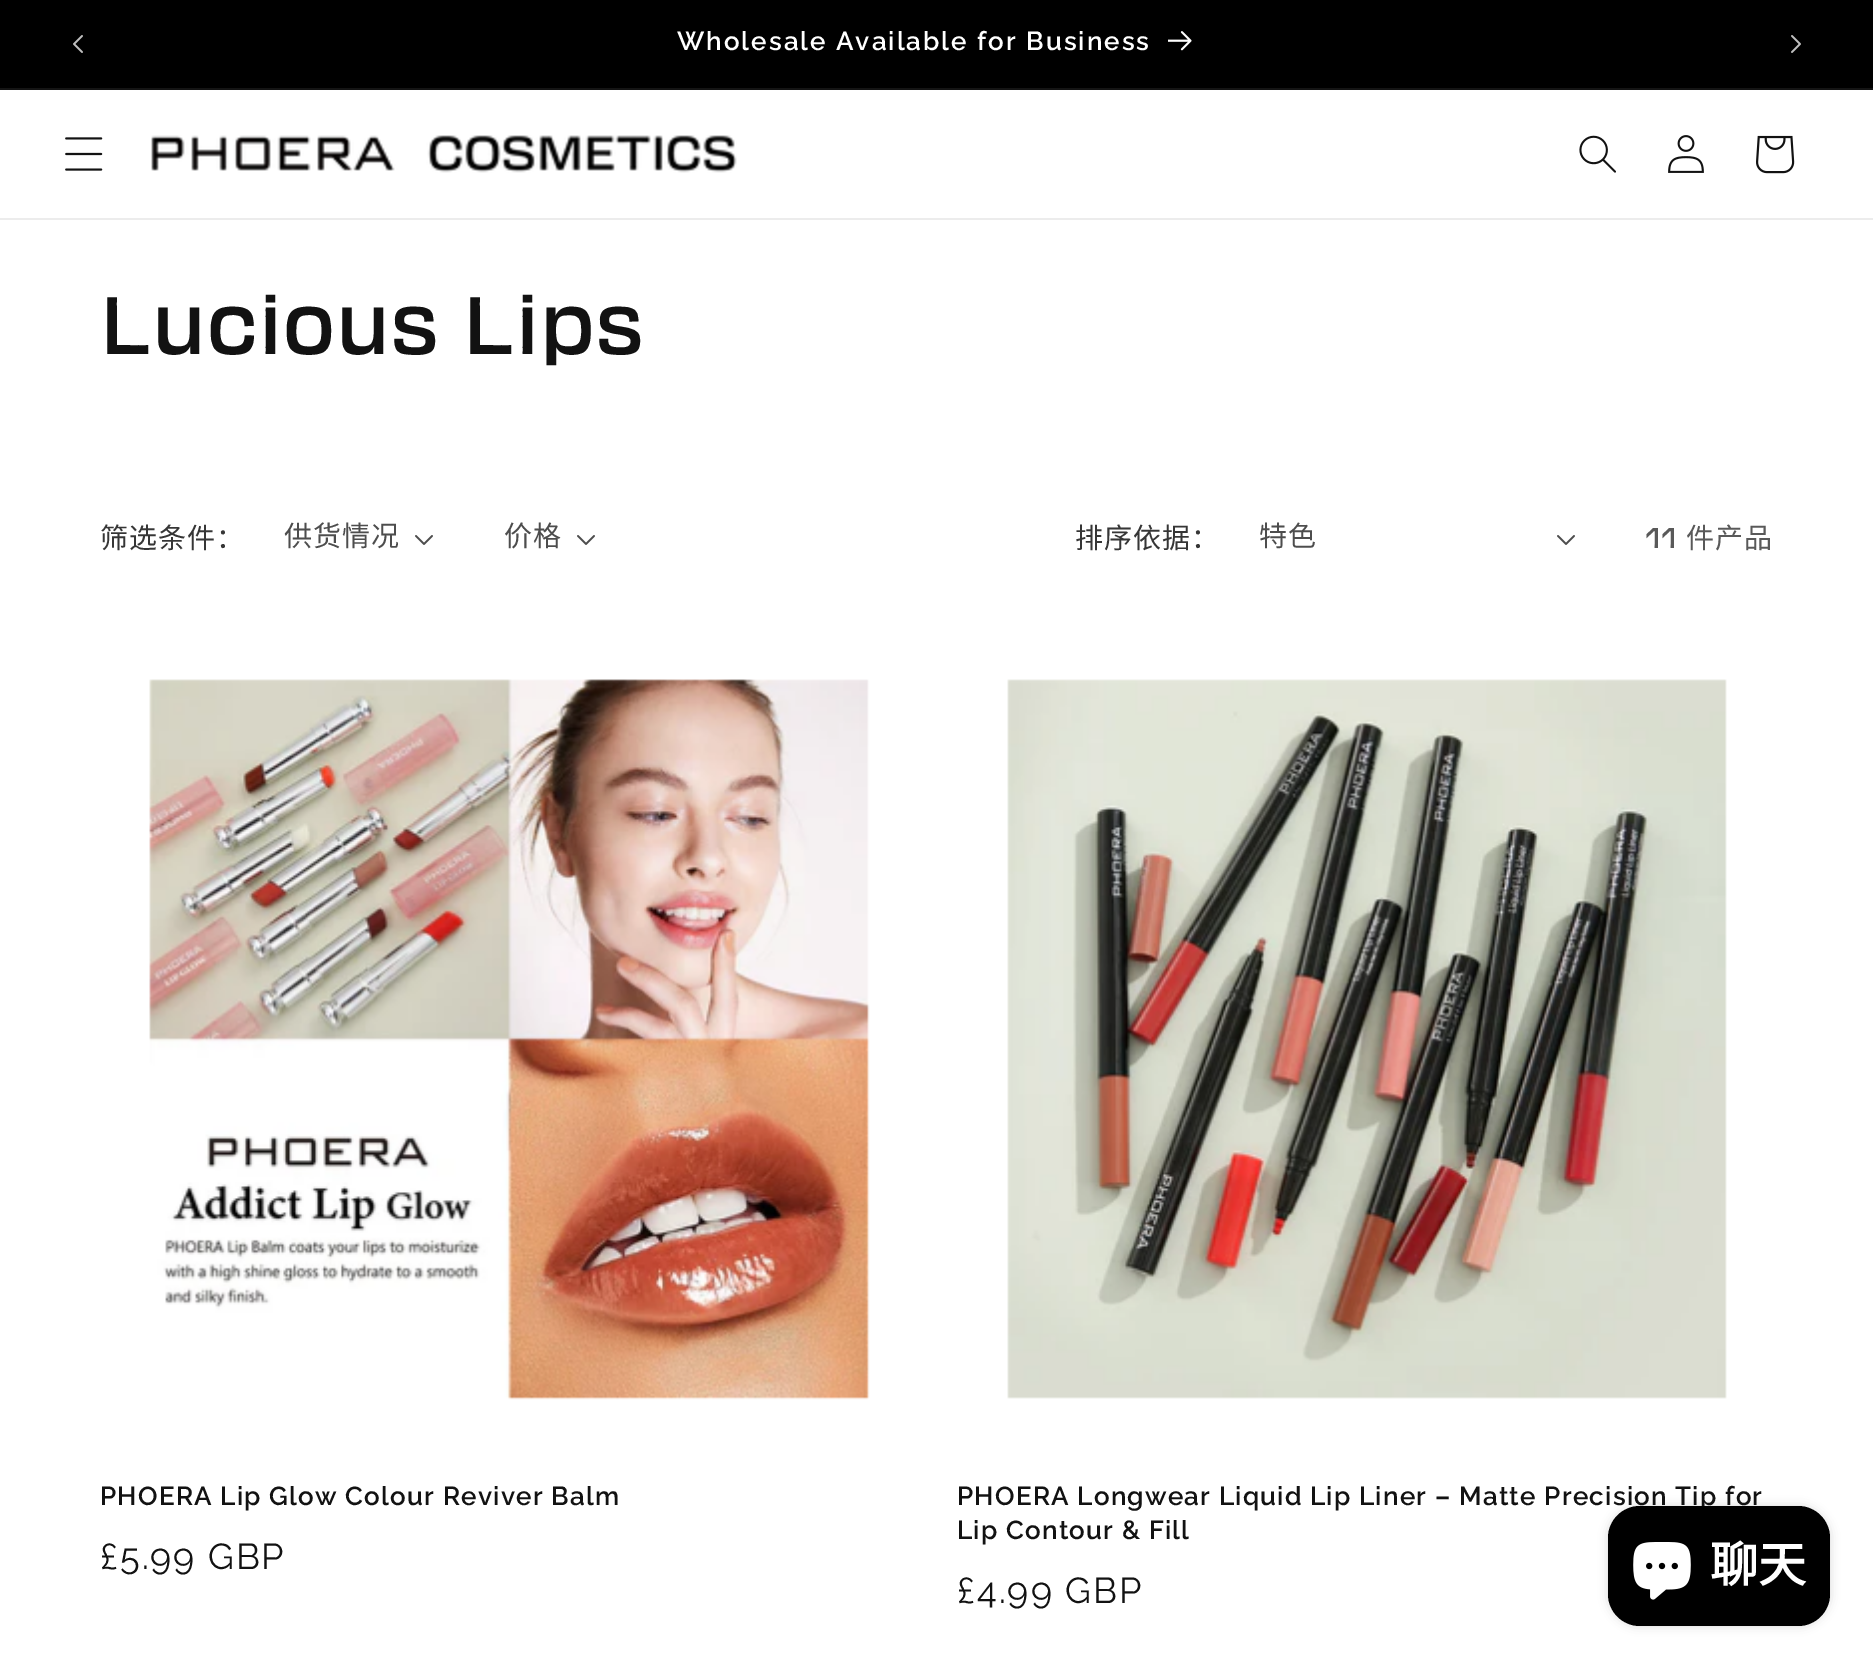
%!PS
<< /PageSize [1873 1668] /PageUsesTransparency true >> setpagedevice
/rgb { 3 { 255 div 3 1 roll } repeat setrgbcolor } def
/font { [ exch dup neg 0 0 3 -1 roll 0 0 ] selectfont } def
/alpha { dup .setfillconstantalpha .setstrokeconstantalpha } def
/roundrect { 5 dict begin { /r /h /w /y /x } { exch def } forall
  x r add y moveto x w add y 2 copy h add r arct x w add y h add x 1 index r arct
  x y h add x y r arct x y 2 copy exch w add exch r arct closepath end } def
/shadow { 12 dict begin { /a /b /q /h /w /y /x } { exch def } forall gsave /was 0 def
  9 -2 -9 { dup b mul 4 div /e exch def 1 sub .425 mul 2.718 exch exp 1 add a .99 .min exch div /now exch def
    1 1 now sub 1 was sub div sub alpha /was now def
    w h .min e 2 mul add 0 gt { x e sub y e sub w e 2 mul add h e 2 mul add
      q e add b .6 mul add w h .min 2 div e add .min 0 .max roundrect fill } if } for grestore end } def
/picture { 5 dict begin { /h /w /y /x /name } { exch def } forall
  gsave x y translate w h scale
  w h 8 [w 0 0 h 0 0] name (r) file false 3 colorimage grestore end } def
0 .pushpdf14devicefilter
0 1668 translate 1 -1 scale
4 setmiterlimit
255 255 255 rgb
0 0 1873 1668 rectfill
0 0 0 rgb
0 0 1873 88 rectfill
20 20 20 rgb
0 88 1873 2 rectfill
(img/1.rgb) 73 35 10 18 picture
(img/2.rgb) 1168 31 24 20 picture
(img/3.rgb) 1791 35 10 18 picture
236 236 236 rgb
0 218 1873 2 rectfill
(img/4.rgb) 65 137 38 34 picture
(img/5.rgb) 151 135 586 38 picture
(img/6.rgb) 1579 135 37 38 picture
(img/7.rgb) 1668 135 36 38 picture
(img/8.rgb) 1756 135 39 39 picture
(img/9.rgb) 415 535 18 10 picture
(img/9.rgb) 577 535 18 10 picture
(img/9.rgb) 1557 535 18 10 picture
(img/10.rgb) 149 679 721 721 picture
(img/11.rgb) 1007 679 720 720 picture
0 0 0 rgb
1608 1506 222 120 32 5 0.15 shadow
/Raleway-SemiBold 26 font
255 255 255 rgb
677 50 moveto 2 0 (Wholesale Available for Business) ashow
/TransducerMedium-Medium 80 font
18 18 18 rgb
100 354 moveto 1.2 0 (Lucious Lips) ashow
/NotoSansCJKSC-Regular 28 font
54 54 54 rgb
100 548 moveto 1 0 (筛选条件：) ashow
77 77 77 rgb
284 546 moveto 1 0 (供货情况) ashow
504 546 moveto 1 0 (价格) ashow
54 54 54 rgb
1075 548 moveto 1 0 (排序依据：) ashow
77 77 77 rgb
1259 546 moveto 1 0 (特色) ashow
/TransducerMedium-Medium 28 font
89 89 89 rgb
1646 548 moveto 1.2 0 (11) ashow
/NotoSansCJKSC-Regular 28 font
1686 548 moveto 1.2 0 (件产品) ashow
/Raleway-SemiBold 26 font
18 18 18 rgb
100 1505 moveto 1.2 0 (PHOERA Lip Glow Colour Reviver Balm) ashow
/Raleway-Regular 36 font
100 1569 moveto 2 0 (£5.99 GBP) ashow
/Raleway-SemiBold 26 font
957 1505 moveto 1.2 0 (PHOERA Longwear Liquid Lip Liner – Matte Precision Tip for) ashow
957 1539 moveto 1.2 0 (Lip Contour & Fill) ashow
/Raleway-Regular 36 font
957 1603 moveto 2 0 (£4.99 GBP) ashow
0 0 0 rgb
1608 1506 222 120 32 roundrect fill
(img/12.rgb) 1633 1542 58 58 picture
/NotoSansCJKSC-Bold 48 font
255 255 255 rgb
1710 1582 moveto (聊天) show
.poppdf14devicefilter showpage
